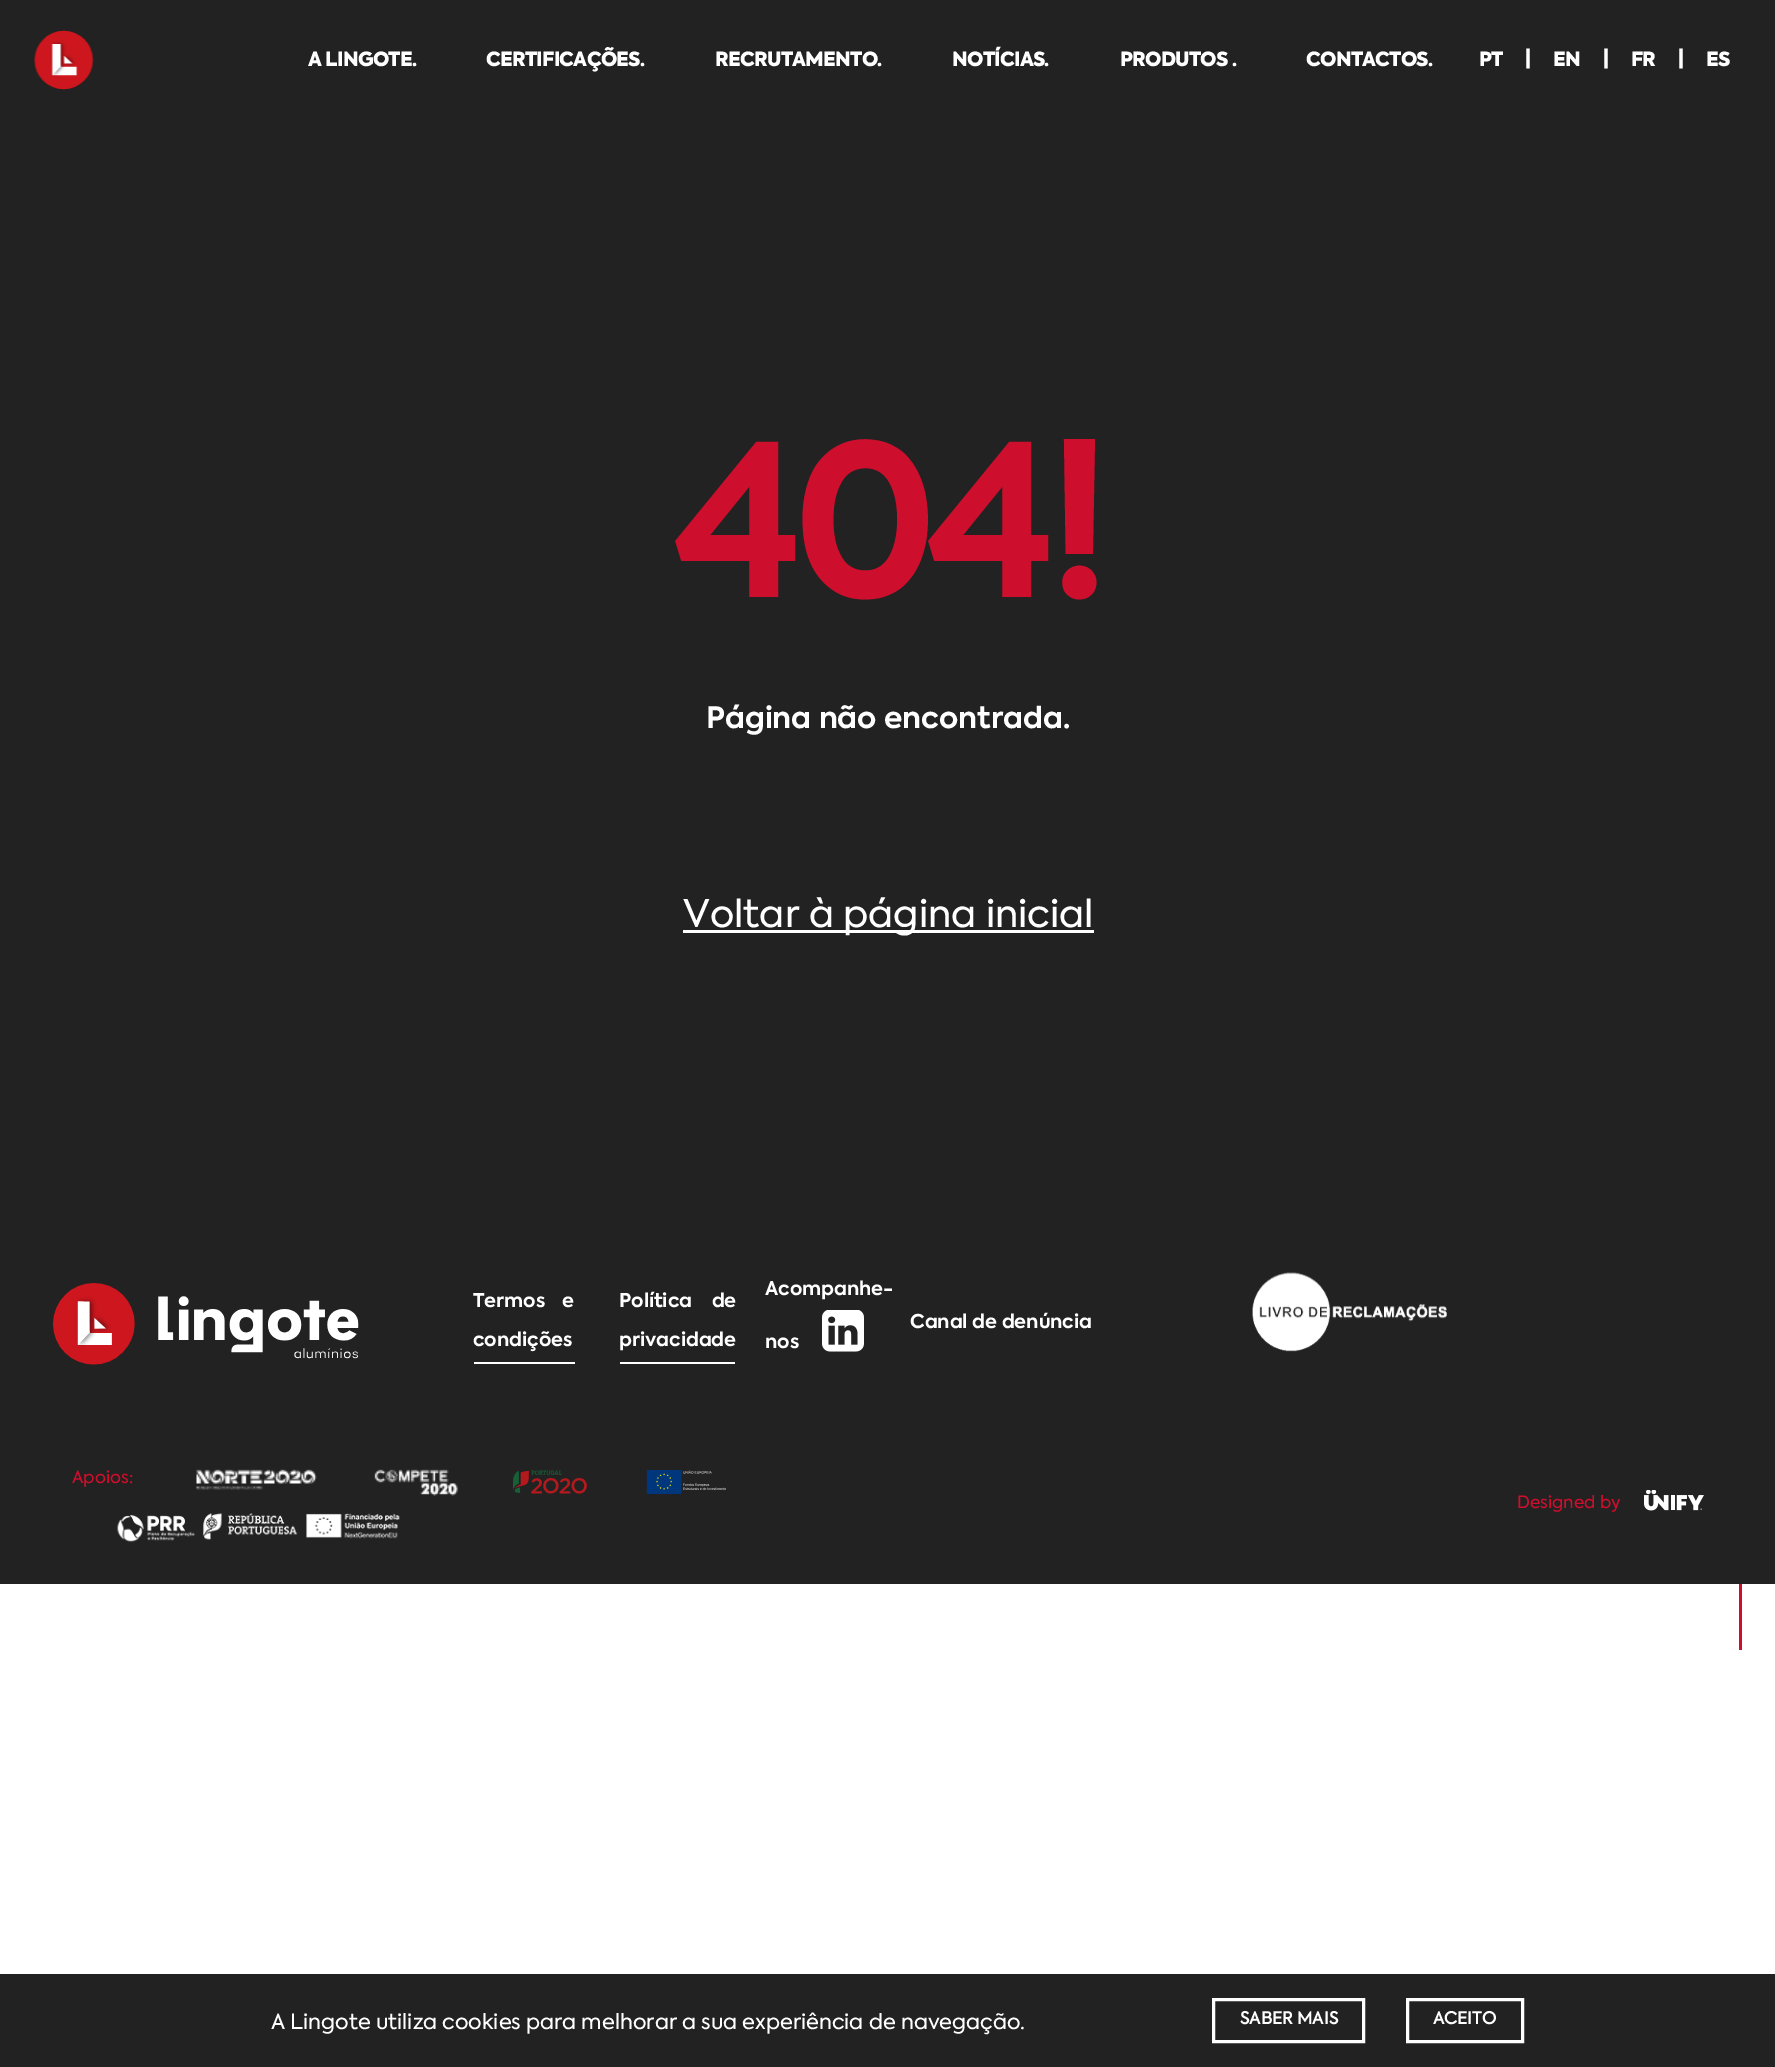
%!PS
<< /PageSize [1775 2067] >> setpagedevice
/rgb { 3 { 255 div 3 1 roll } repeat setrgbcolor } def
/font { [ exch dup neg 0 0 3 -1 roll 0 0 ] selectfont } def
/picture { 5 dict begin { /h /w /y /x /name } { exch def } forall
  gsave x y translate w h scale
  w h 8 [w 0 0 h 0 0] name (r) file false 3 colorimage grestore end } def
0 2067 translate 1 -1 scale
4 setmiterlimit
255 255 255 rgb
0 0 1775 2067 rectfill
34 34 34 rgb
0 0 1775 1584 rectfill
(img/1.rgb) 34 30 60 60 picture
255 255 255 rgb
683 930 411 3 rectfill
(img/2.rgb) 53 1283 306 82 picture
474 1362 101 2 rectfill
620 1362 115 2 rectfill
(img/3.rgb) 822 1310 42 42 picture
(img/4.rgb) 1252 1272 195 80 picture
(img/5.rgb) 196 1469 121 21 picture
(img/6.rgb) 374 1469 84 27 picture
(img/7.rgb) 513 1470 213 24 picture
(img/8.rgb) 117 1513 283 29 picture
(img/9.rgb) 1644 1490 60 21 picture
206 14 45 rgb
1739 1584 3 66 rectfill
34 34 34 rgb
0 1974 1775 93 rectfill
255 255 255 rgb
3 setlinewidth
1213.5 1999.5 150 42 rectstroke
1407.5 1999.5 115 42 rectstroke
/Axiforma-Black 19.5 font
308 66 moveto -0.75 0 (A LINGOTE.) ashow
486 66 moveto -0.75 0 (CERTIFICAÇÕES.) ashow
715 66 moveto -0.75 0 (RECRUTAMENTO.) ashow
952 66 moveto -0.75 0 (NOTÍCIAS.) ashow
1120 66 moveto -0.75 0 (PRODUTOS .) ashow
1306 66 moveto -0.75 0 (CONTACTOS.) ashow
1479 66 moveto -0.75 0 (PT) ashow
1525 65 moveto -0.75 0 (|) ashow
1553 66 moveto -0.75 0 (EN) ashow
1603 65 moveto -0.75 0 (|) ashow
1631 66 moveto -0.75 0 (FR) ashow
1678 65 moveto -0.75 0 (|) ashow
1706 66 moveto -0.75 0 (ES) ashow
/Axiforma-Bold 210 font
206 14 45 rgb
674 597 moveto -10.5 0 (404!) ashow
/Axiforma-Bold 29.4 font
255 255 255 rgb
706 728 moveto (Página não encontrada.) show
/Axiforma-Regular 37.75 font
683 927 moveto (Voltar à página inicial) show
/Axiforma-Bold 19 font
473 1307 moveto 12 0 32 (Termos e) widthshow
473 1346 moveto (condições) show
619 1307 moveto 15 0 32 (Política de) widthshow
[
  [(privacidade) 619 1346]
  [(Acompanhe-) 765 1295]
  [(nos) 765 1348]
  [(Canal de denúncia) 910 1328]
] { aload pop moveto show } forall
/Axiforma-Regular 17 font
206 14 45 rgb
72 1483 moveto (Apoios:) show
1517 1508 moveto (Designed by) show
/Axiforma-Regular 21 font
255 255 255 rgb
271 2029 moveto (A Lingote utiliza cookies para melhorar a sua experiência de navegação.) show
/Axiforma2-Bold 16.75 font
1240 2024 moveto (SABER MAIS) show
1433 2024 moveto (ACEITO) show
showpage
